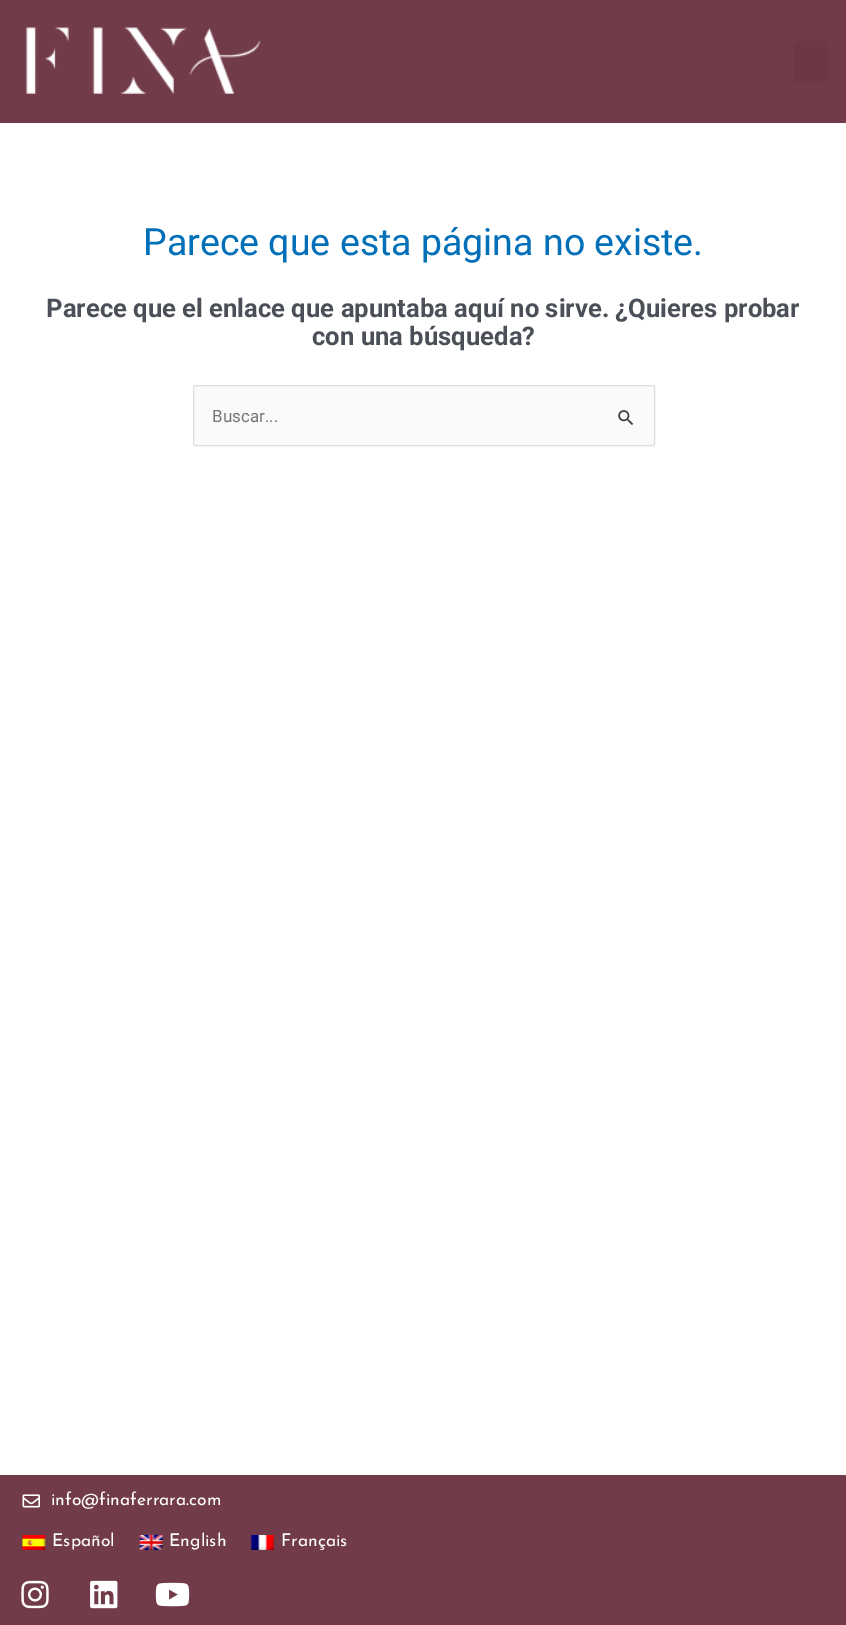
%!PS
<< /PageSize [846 1625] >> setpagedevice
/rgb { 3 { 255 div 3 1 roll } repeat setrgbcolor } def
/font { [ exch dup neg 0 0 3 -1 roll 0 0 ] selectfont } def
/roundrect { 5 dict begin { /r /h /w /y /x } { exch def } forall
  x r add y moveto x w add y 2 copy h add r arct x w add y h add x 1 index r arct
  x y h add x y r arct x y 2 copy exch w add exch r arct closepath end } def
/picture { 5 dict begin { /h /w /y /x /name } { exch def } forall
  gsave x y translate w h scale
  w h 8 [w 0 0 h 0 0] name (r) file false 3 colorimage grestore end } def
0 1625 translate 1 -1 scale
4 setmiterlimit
255 255 255 rgb
0 0 846 1625 rectfill
114 59 73 rgb
0 0 846 123 rectfill
(img/1.rgb) 26 27 235 68 picture
108 56 69 rgb
793 41 35 42 4 roundrect fill
250 250 250 rgb
193.5 385.5 461 60 2 roundrect gsave fill grestore
221 221 221 rgb
stroke
(img/2.rgb) 618 410 16 15 picture
114 59 73 rgb
0 1475 846 150 rectfill
(img/3.rgb) 22 1494 18 14 picture
(img/4.rgb) 22 1535 24 15 picture
(img/5.rgb) 139 1535 24 15 picture
(img/6.rgb) 250 1535 25 15 picture
(img/7.rgb) 21 1580 28 29 picture
(img/8.rgb) 90 1580 28 29 picture
(img/9.rgb) 155 1582 35 25 picture
/Roboto-Regular 37.5 font
1 112 185 rgb
143 255 moveto (Parece que esta página no existe.) show
/Roboto-Bold 25.65 font
75 79 88 rgb
46 317 moveto (Parece que el enlace que apuntaba aquí no sirve. ¿Quieres probar) show
312 345 moveto (con una búsqueda?) show
/Roboto-Regular 17 font
117 117 117 rgb
212 422 moveto (Buscar...) show
/JosefinSans-Regular 17.5 font
255 255 255 rgb
[
  [(info@finaferrara.com) 51 1505]
  [(Español) 52 1546]
  [(English) 169 1546]
  [(Français) 281 1546]
] { aload pop moveto show } forall
showpage
